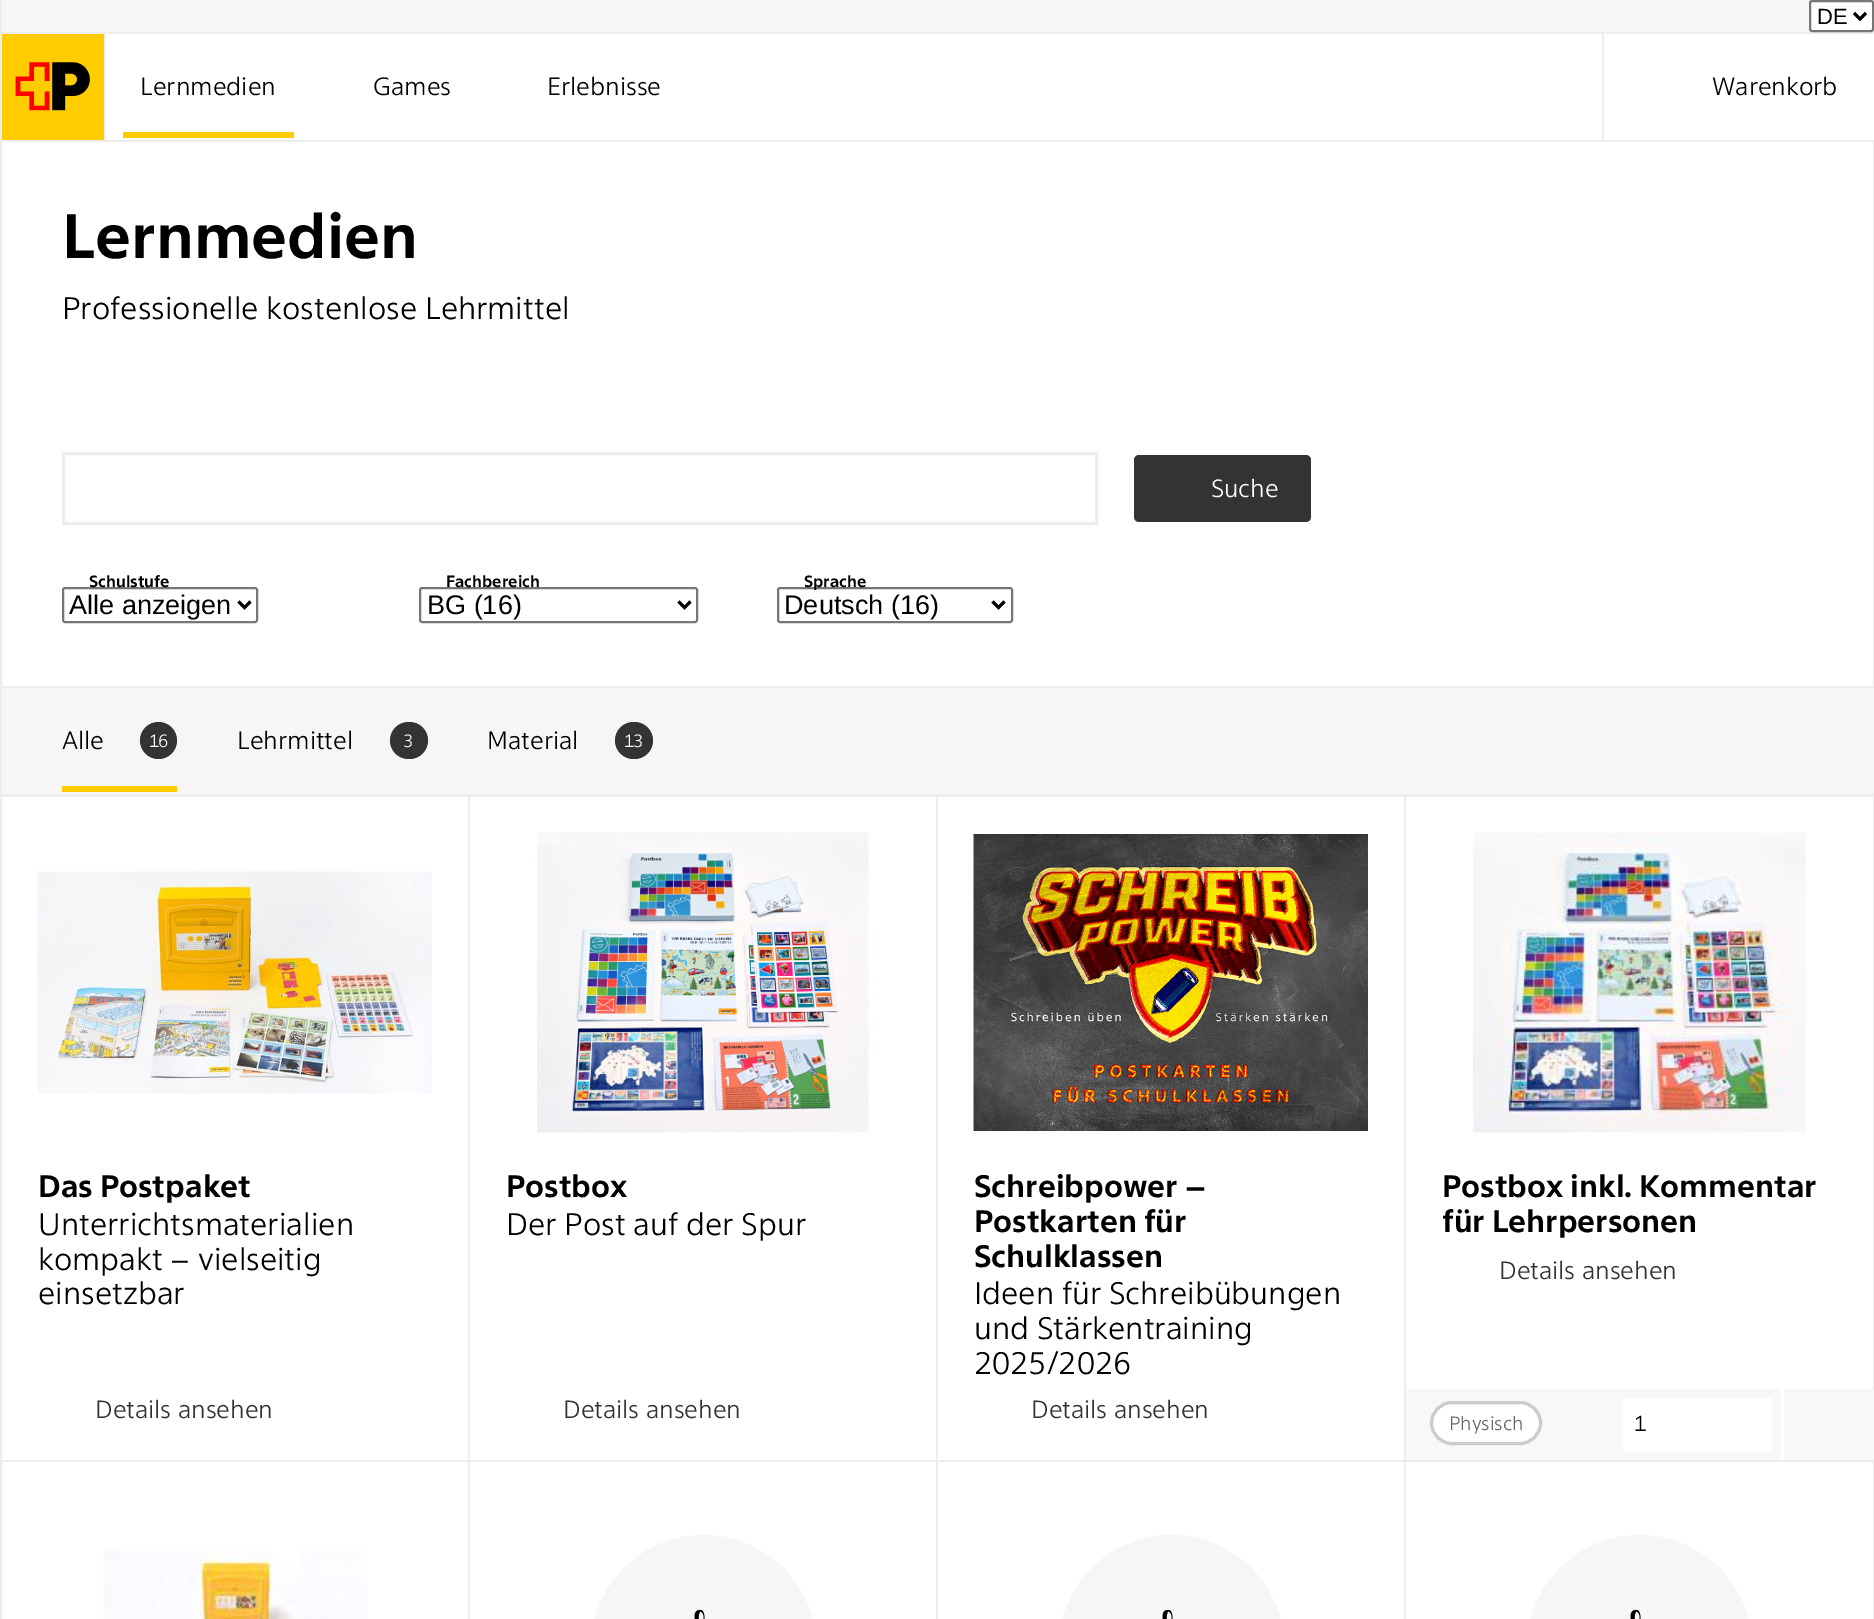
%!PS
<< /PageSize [1874 1619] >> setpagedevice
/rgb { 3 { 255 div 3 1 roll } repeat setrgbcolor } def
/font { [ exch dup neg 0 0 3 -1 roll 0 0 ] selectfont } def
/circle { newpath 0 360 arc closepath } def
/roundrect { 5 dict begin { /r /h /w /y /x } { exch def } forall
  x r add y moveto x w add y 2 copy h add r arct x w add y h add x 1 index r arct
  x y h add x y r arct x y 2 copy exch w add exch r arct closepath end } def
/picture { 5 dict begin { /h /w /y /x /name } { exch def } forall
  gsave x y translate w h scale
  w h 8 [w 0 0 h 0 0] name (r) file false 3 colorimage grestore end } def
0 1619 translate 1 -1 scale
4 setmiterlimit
255 255 255 rgb
0 0 1874 1619 rectfill
237 237 237 rgb
2 setlinewidth
1 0 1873 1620 rectstroke
[
  [2 140 1872 2 237 237 237]
  [2 0 1872 32 247 246 245]
  [104 33 2 107 237 237 237]
  [1602 33 2 107 237 237 237]
  [2 32 1872 2 237 237 237]
] { aload pop rgb rectfill } forall
255 255 255 rgb
1810 1 63 30 2 roundrect gsave fill grestore
118 118 118 rgb
stroke
0 0 0 rgb
3 setlinewidth
1854 13 moveto 1860 19 lineto 1866 13 lineto stroke
255 255 255 rgb
1873 34 1 106 rectfill
255 204 0 rgb
2 34 102 106 rectfill
(img/1.rgb) 15 62 75 49 picture
123 132 171 6 rectfill
237 237 237 rgb
63.5 453.5 1033 70 rectstroke
51 51 51 rgb
1134 455 177 67 5 roundrect fill
118 118 118 rgb
2 setlinewidth
63 588 194 34 2 roundrect stroke
0 0 0 rgb
3 setlinewidth
238.5 601.5 moveto 244.5 607.5 lineto 250.5 601.5 lineto stroke
118 118 118 rgb
2 setlinewidth
420 588 277 34 2 roundrect stroke
0 0 0 rgb
3 setlinewidth
678.5 601.5 moveto 684.5 607.5 lineto 690.5 601.5 lineto stroke
118 118 118 rgb
2 setlinewidth
778 588 234 34 2 roundrect stroke
0 0 0 rgb
3 setlinewidth
992.5 601.5 moveto 998.5 607.5 lineto 1004.5 601.5 lineto stroke
[
  [2 688 1872 106 247 246 245]
  [2 686 1872 2 237 237 237]
  [2 794 1872 3 237 237 237]
] { aload pop rgb rectfill } forall
51 51 51 rgb
158.5 740.5 18.5 circle fill
255 204 0 rgb
62 786 115 6 rectfill
51 51 51 rgb
390 722 38 37 18.5 roundrect fill
615 722 38 37 18.5 roundrect fill
237 237 237 rgb
468 797 2 664 rectfill
2 1460 468 2 rectfill
(img/2.rgb) 37 871 395 223 picture
936 797 2 664 rectfill
470 1460 468 2 rectfill
(img/3.rgb) 537 832 332 301 picture
1404 797 2 664 rectfill
938 1460 936 2 rectfill
(img/4.rgb) 973 834 395 297 picture
(img/5.rgb) 1473 832 333 301 picture
248 248 248 rgb
1406 1389 468 71 rectfill
255 255 255 rgb
1431.5 1402.5 109 41 20.5 roundrect gsave fill grestore
203 203 203 rgb
stroke
[
  [1622 1398 150 53 255 255 255]
  [1781 1389 3 71 255 255 255]
  [468 1461 2 158 237 237 237]
] { aload pop rgb rectfill } forall
(img/6.rgb) 103 1551 264 68 picture
936 1461 2 158 rectfill
247 246 245 rgb
591 1535 225 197 112.5 roundrect fill
(img/7.rgb) 694 1610 11 9 picture
237 237 237 rgb
1404 1461 2 158 rectfill
247 246 245 rgb
1059 1535 225 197 112.5 roundrect fill
(img/7.rgb) 1162 1610 11 9 picture
1527 1535 225 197 112.5 roundrect fill
(img/7.rgb) 1630 1610 11 9 picture
/LiberationSans-Regular 22 font
0 0 0 rgb
1817 24 moveto (DE) show
/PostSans-Light 25.25 font
[
  [(Lernmedien) 140 95]
  [(Games) 373 95]
  [(Erlebnisse) 547 95]
  [(Warenkorb) 1712 95]
] { aload pop moveto show } forall
/PostSans-Bold 63.25 font
62 258 moveto (Lernmedien) show
/PostSans-Light 31.6 font
62 319 moveto (Professionelle kostenlose Lehrmittel) show
/PostSans-Light 25.25 font
255 255 255 rgb
1211 497 moveto (Suche) show
/PostSans-Bold 16.5 font
0 0 0 rgb
89 587 moveto (Schulstufe) show
/LiberationSans-Regular 27 font
69 614 moveto (Alle anzeigen) show
/PostSans-Bold 16.5 font
446 587 moveto (Fachbereich) show
/LiberationSans-Regular 27 font
427 614 moveto (BG \(16\)) show
/PostSans-Bold 16.5 font
804 587 moveto (Sprache) show
/LiberationSans-Regular 27 font
784 614 moveto (Deutsch \(16\)) show
/PostSans-Light 25.25 font
62 749 moveto (Alle) show
/PostSans-Light 18 font
255 255 255 rgb
149 747 moveto -1 0 (16) ashow
/PostSans-Light 25.25 font
0 0 0 rgb
237 749 moveto (Lehrmittel) show
/PostSans-Light 18 font
255 255 255 rgb
403 747 moveto -1 0 (3) ashow
/PostSans-Light 25.25 font
0 0 0 rgb
487 749 moveto (Material) show
/PostSans-Light 18 font
255 255 255 rgb
624 747 moveto -1 0 (13) ashow
/PostSans-Bold 31.6 font
0 0 0 rgb
38 1197 moveto (Das Postpaket) show
/PostSans-Light 31.6 font
[
  [(Unterrichtsmaterialien) 38 1235]
  [(kompakt – vielseitig) 38 1270]
  [(einsetzbar) 38 1304]
] { aload pop moveto show } forall
/PostSans-Light 25.25 font
51 51 51 rgb
95 1418 moveto (Details ansehen) show
/PostSans-Bold 31.6 font
0 0 0 rgb
506 1197 moveto (Postbox) show
/PostSans-Light 31.6 font
506 1235 moveto (Der Post auf der Spur) show
/PostSans-Light 25.25 font
51 51 51 rgb
563 1418 moveto (Details ansehen) show
/PostSans-Bold 31.6 font
0 0 0 rgb
[
  [(Schreibpower –) 974 1197]
  [(Postkarten für) 974 1232]
  [(Schulklassen) 974 1267]
] { aload pop moveto show } forall
/PostSans-Light 31.6 font
[
  [(Ideen für Schreibübungen) 974 1304]
  [(und Stärkentraining) 974 1339]
  [(2025/2026) 974 1374]
] { aload pop moveto show } forall
/PostSans-Light 25.25 font
51 51 51 rgb
1031 1418 moveto (Details ansehen) show
/PostSans-Bold 31.6 font
0 0 0 rgb
1442 1197 moveto (Postbox inkl. Kommentar) show
1442 1232 moveto (für Lehrpersonen) show
/PostSans-Light 25.25 font
51 51 51 rgb
1499 1279 moveto (Details ansehen) show
/PostSans-Light 19.5 font
102 102 102 rgb
1449 1430 moveto (Physisch) show
/PostSans-Light 22 font
0 0 0 rgb
1634 1431 moveto (1) show
showpage
